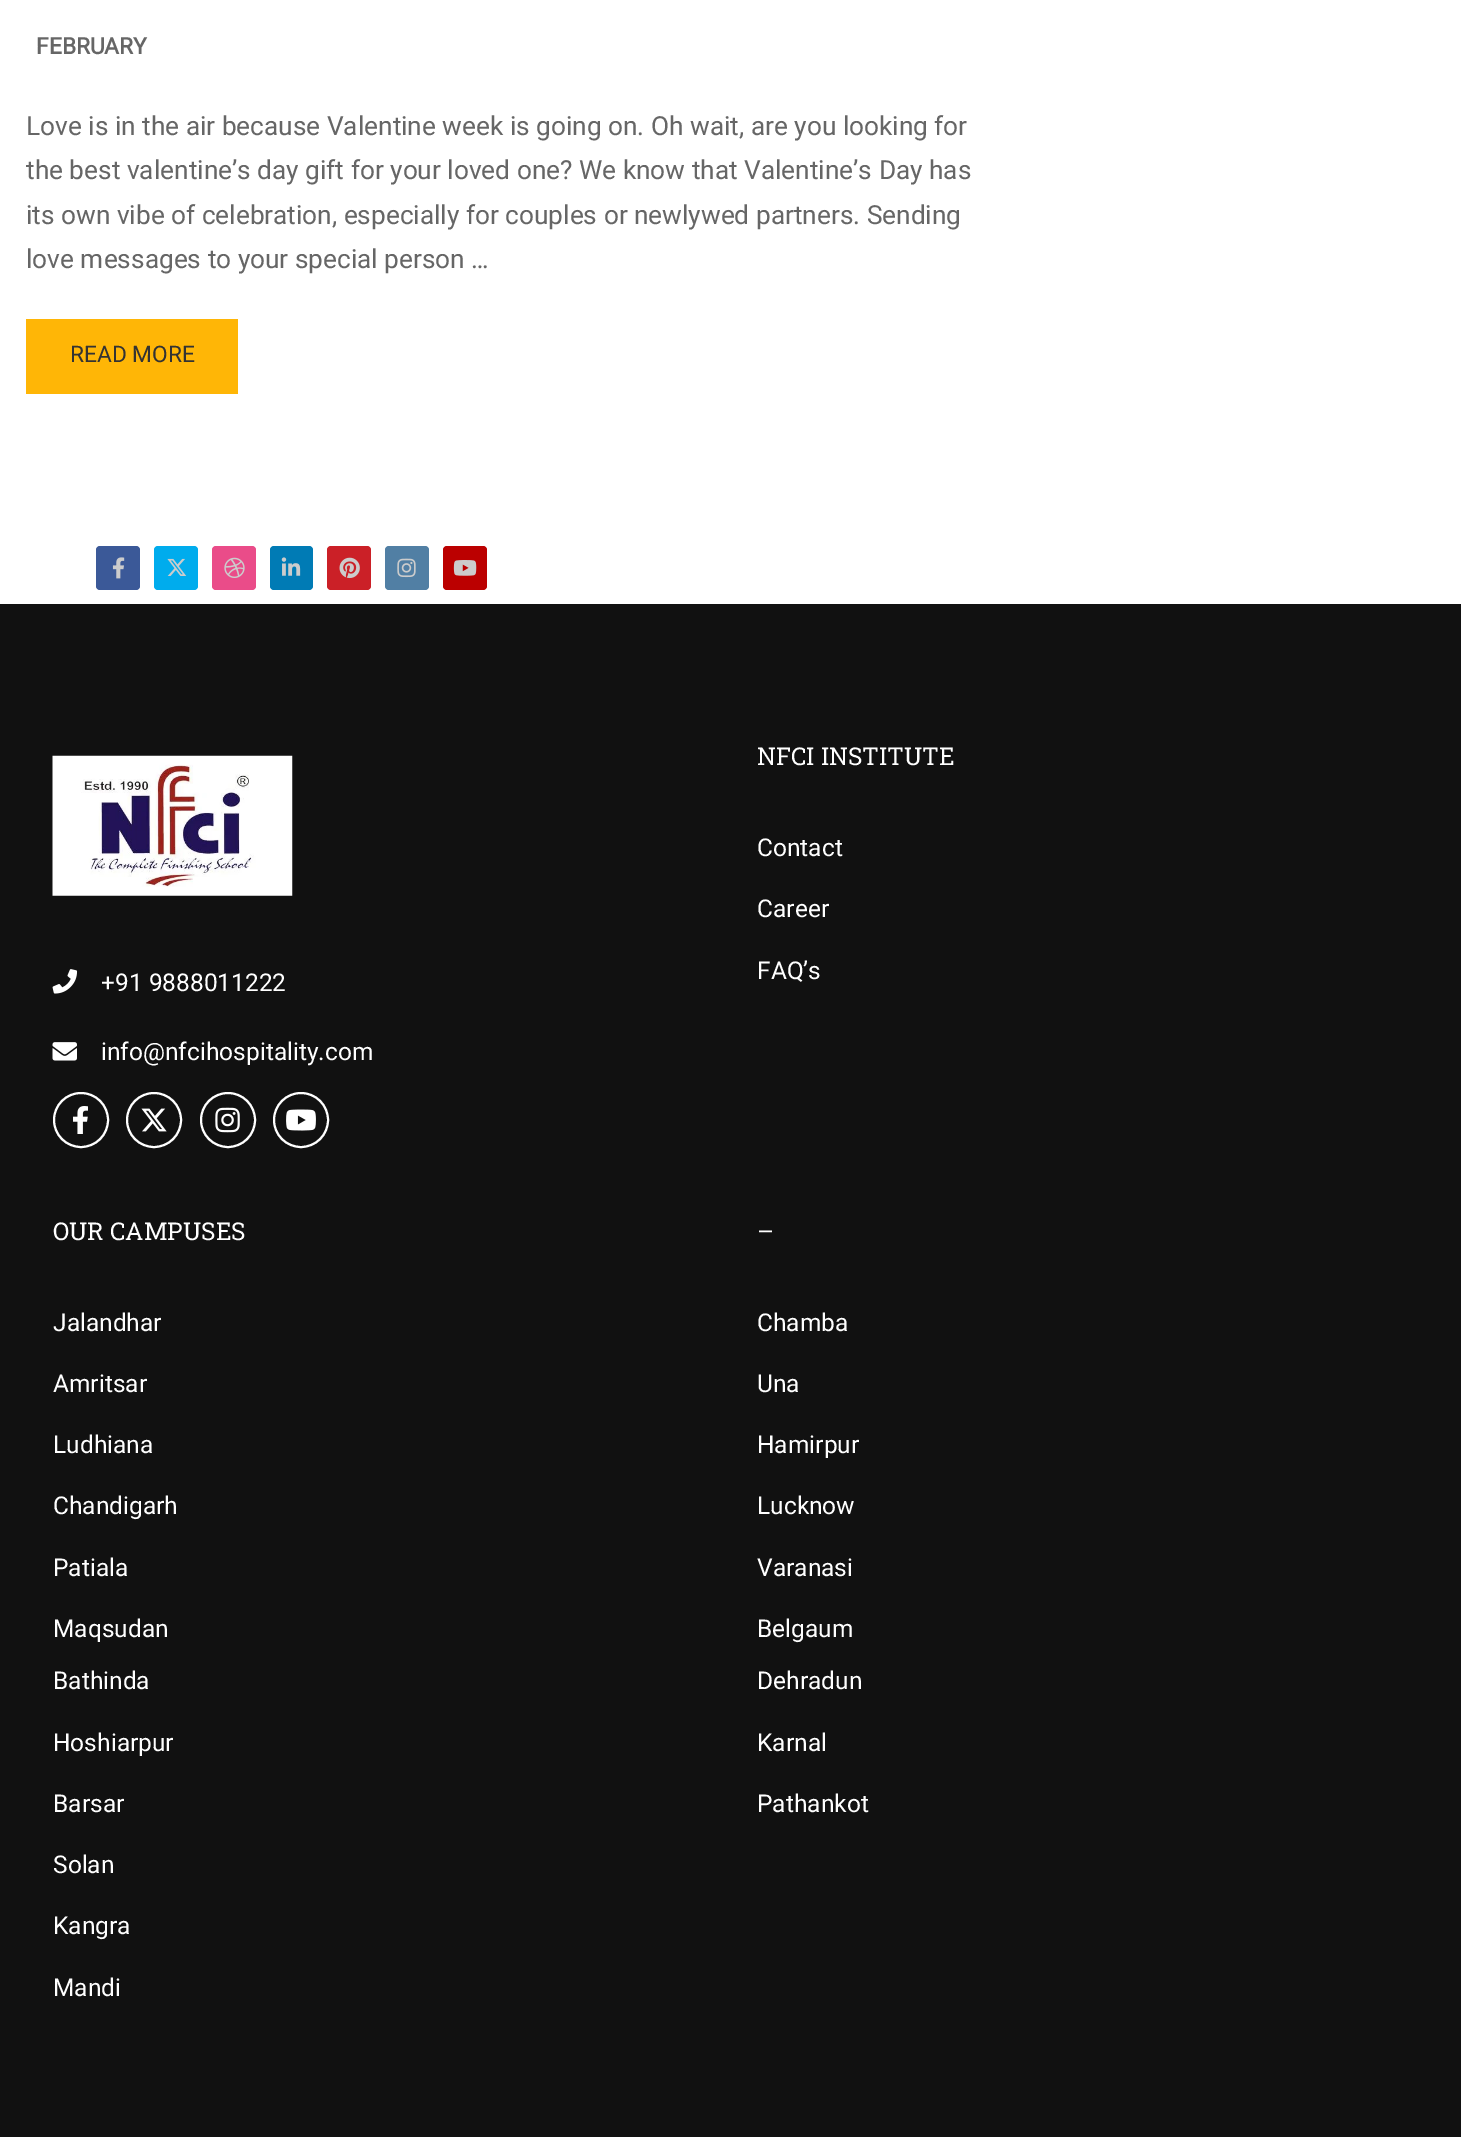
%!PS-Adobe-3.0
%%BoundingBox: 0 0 1461 2137
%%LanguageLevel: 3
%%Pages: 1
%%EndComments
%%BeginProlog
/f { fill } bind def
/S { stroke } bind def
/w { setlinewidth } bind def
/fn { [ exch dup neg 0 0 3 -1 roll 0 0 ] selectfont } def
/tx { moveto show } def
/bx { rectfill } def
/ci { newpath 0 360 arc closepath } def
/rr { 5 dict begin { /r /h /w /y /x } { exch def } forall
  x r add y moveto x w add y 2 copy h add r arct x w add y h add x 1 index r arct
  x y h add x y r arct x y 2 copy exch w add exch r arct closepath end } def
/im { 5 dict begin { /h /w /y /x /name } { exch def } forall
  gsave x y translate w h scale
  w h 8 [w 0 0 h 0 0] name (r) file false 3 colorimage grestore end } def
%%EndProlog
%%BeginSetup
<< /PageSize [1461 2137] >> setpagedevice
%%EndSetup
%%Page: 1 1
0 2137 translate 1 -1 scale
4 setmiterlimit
1 setgray
0 0 1461 2137 bx
/Roboto-Bold 22.75 fn
0.4 setgray
(FEBRUARY) 36 54 tx
/Roboto-Regular 26.25 fn
(Love is in the air because Valentine week is going on. Oh wait, are you looking for) 26 135 tx
(the best valentine’s day gift for your loved one? We know that Valentine’s Day has) 26 179 tx
(its own vibe of celebration, especially for couples or newlywed partners. Sending) 26 224 tx
(love messages to your special person …) 26 268 tx
1 0.714 0.024 setrgbcolor
26 319 212 75 bx
/Roboto-Regular 22.75 fn
0.2 setgray
(READ MORE) 70 362 tx
0.231 0.349 0.596 setrgbcolor
96 546 44 44 4 rr f
(image0.raw) 112 557 13 22 im
0 0.675 0.929 setrgbcolor
154 546 44 44 4 rr f
(image1.raw) 167 558 20 18 im
0.918 0.298 0.537 setrgbcolor
212 546 44 44 4 rr f
(image2.raw) 224 557 21 21 im
0 0.482 0.71 setrgbcolor
270 546 43 44 4 rr f
(image3.raw) 281 557 20 19 im
0.796 0.125 0.153 setrgbcolor
327 546 44 44 4 rr f
(image4.raw) 339 557 21 22 im
0.318 0.498 0.643 setrgbcolor
385 546 44 44 4 rr f
(image5.raw) 397 558 19 20 im
0.733 0 0 setrgbcolor
443 546 44 44 4 rr f
(image6.raw) 453 560 24 16 im
0.067 setgray
0 604 1461 1533 bx
/RobotoSlab-Regular 24.5 fn
1 setgray
(NFCI INSTITUTE) 757 765 tx
/Roboto-Regular 24.5 fn
(Contact) 757 856 tx
(Career) 757 917 tx
(FAQ’s) 757 979 tx
(image7.raw) 52 755 241 141 im
(image8.raw) 52 969 26 25 im
(+91 9888011222) 101 991 tx
(image9.raw) 52 1042 25 19 im
(info@nfcihospitality.com) 101 1060 tx
2 w
81 1120 27 ci S
(image10.raw) 73 1106 15 28 im
154 1120 27 ci S
(image11.raw) 141 1108 26 24 im
228 1120 27 ci S
(image12.raw) 215 1107 25 26 im
301 1120 27 ci S
(image13.raw) 286 1109 30 22 im
/RobotoSlab-Regular 24.5 fn
(OUR CAMPUSES) 53 1240 tx
/Roboto-Regular 24.5 fn
(Jalandhar) 53 1331 tx
(Amritsar) 53 1392 tx
(Ludhiana) 53 1453 tx
(Chandigarh) 53 1514 tx
(Patiala) 53 1576 tx
(Maqsudan) 53 1637 tx
(Bathinda) 53 1689 tx
(Hoshiarpur) 53 1751 tx
(Barsar) 53 1812 tx
(Solan) 53 1873 tx
(Kangra) 53 1934 tx
(Mandi) 53 1996 tx
/RobotoSlab-Regular 24.5 fn
(–) 757 1240 tx
/Roboto-Regular 24.5 fn
(Chamba) 757 1331 tx
(Una) 757 1392 tx
(Hamirpur) 757 1453 tx
(Lucknow) 757 1514 tx
(Varanasi) 757 1576 tx
(Belgaum) 757 1637 tx
(Dehradun) 757 1689 tx
(Karnal) 757 1751 tx
(Pathankot) 757 1812 tx
showpage
%%EOF
